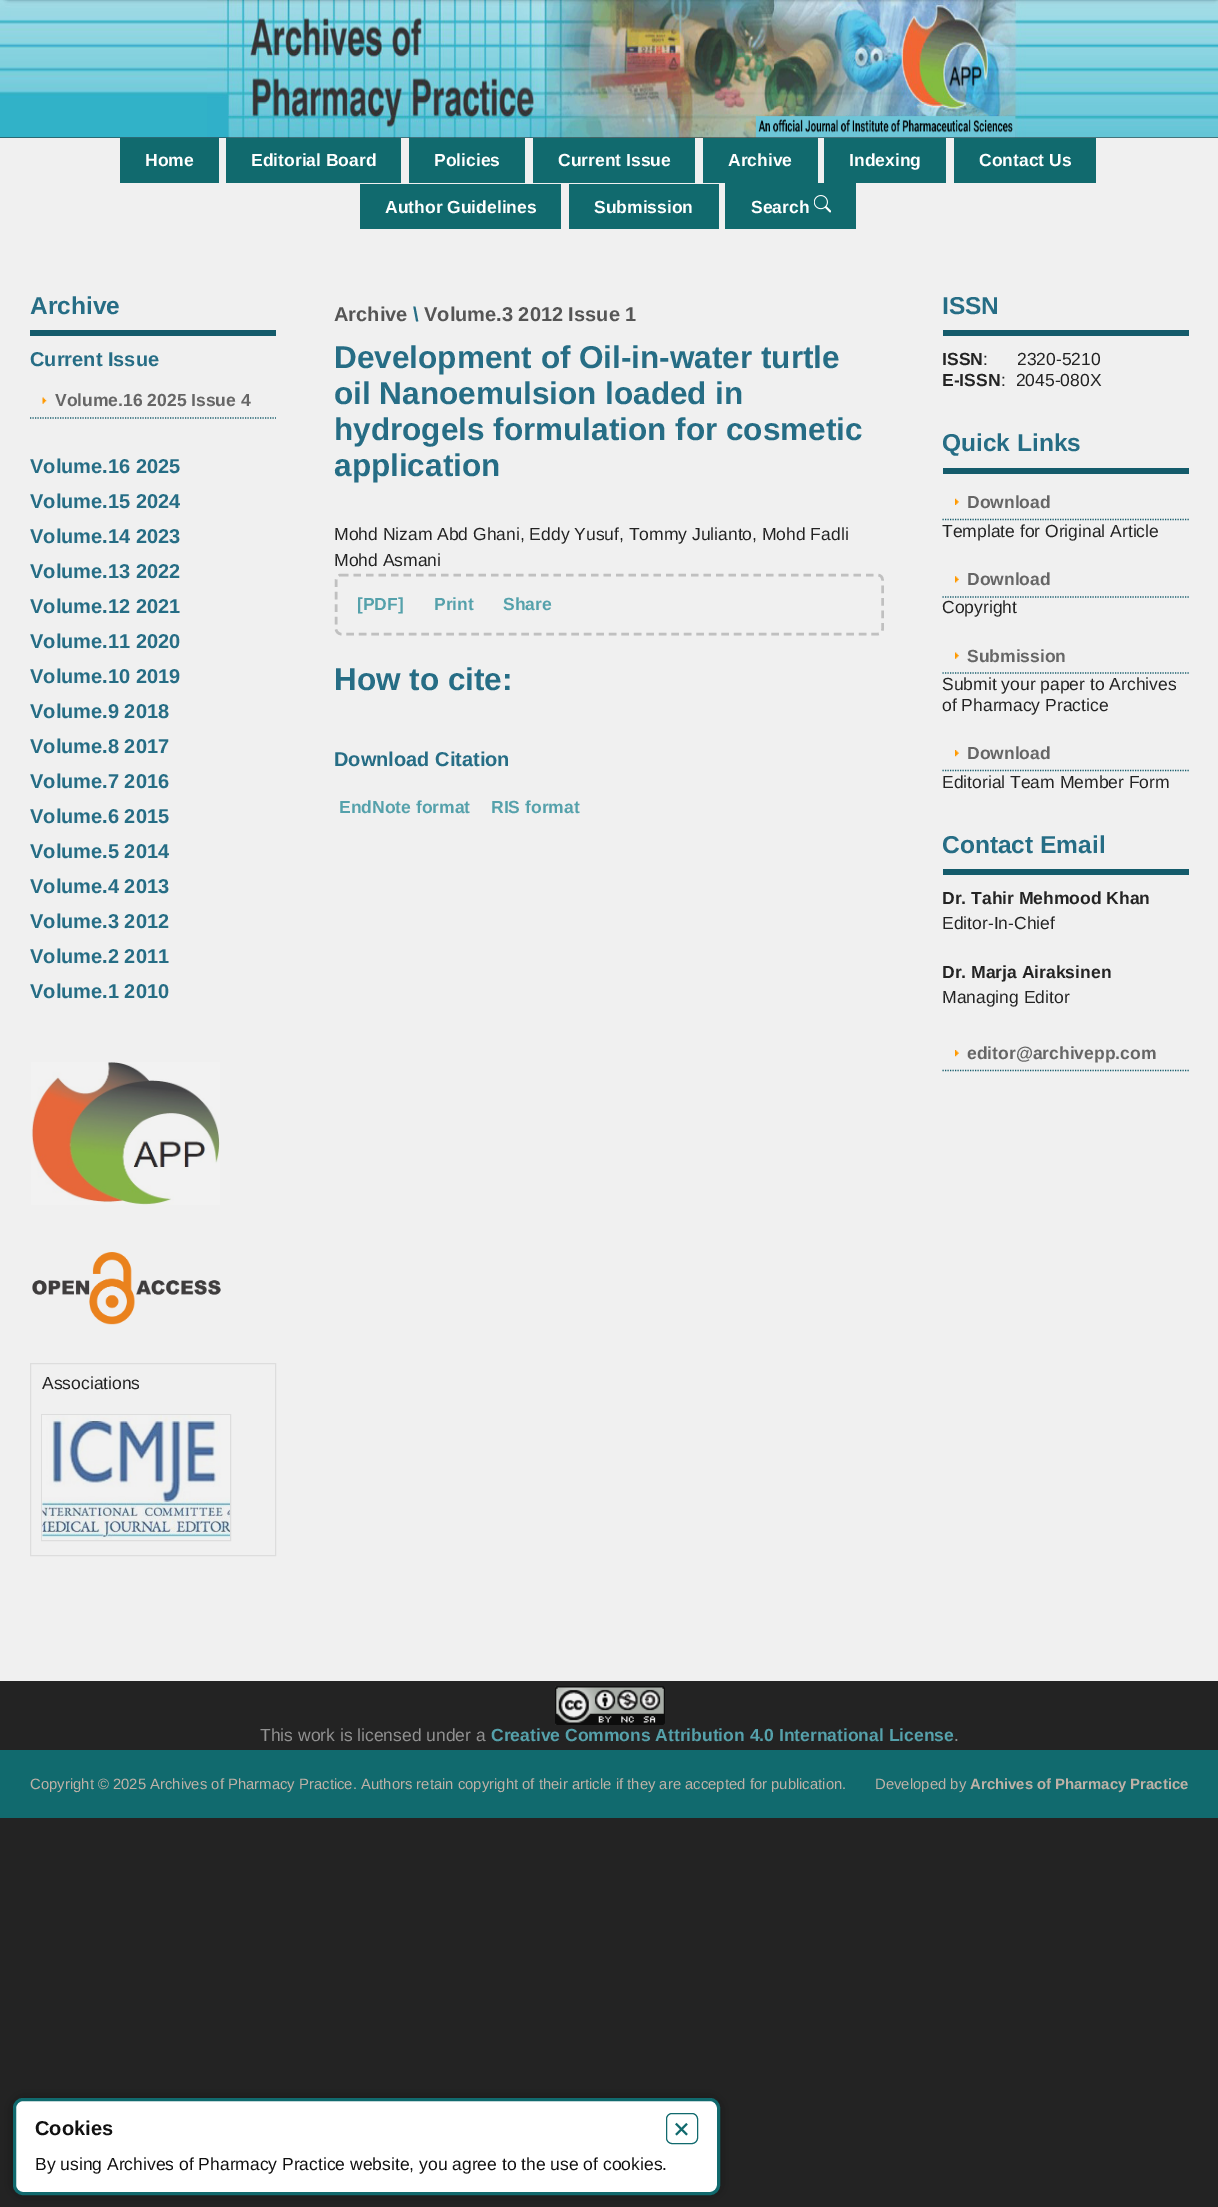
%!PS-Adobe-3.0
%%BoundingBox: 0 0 1218 2207
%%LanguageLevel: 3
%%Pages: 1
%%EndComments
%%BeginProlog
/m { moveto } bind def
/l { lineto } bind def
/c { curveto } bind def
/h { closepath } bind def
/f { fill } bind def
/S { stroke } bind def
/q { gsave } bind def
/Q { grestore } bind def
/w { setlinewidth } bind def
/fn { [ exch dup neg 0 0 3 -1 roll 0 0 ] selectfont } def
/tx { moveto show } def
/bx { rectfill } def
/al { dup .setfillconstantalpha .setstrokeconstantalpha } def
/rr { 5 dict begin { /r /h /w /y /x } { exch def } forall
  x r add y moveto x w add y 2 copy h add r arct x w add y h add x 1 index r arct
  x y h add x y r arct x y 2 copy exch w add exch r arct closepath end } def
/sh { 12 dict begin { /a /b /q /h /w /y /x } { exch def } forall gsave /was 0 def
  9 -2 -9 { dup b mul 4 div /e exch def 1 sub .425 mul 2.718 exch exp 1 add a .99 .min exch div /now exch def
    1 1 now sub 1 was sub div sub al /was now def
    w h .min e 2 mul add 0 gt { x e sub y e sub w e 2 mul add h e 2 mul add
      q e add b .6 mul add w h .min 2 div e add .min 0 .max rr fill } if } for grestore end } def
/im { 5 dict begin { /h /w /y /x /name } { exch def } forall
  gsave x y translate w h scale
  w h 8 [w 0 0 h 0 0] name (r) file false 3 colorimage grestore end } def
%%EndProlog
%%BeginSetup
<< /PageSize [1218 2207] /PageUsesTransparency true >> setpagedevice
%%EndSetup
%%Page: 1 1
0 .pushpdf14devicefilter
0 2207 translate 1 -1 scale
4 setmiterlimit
0.137 setgray
0 0 1218 2207 bx
(image0.raw) 0 0 1218 138 im
0.941 setgray
0 138 1218 1543 bx
0.067 0.416 0.431 setrgbcolor
120 138 99 45 bx
/LiberationSans-Bold 17.5 fn
1 setgray
(Home) 145 166 tx
0.067 0.416 0.431 setrgbcolor
226 138 175 45 bx
1 setgray
(Editorial Board) 251 166 tx
0.067 0.416 0.431 setrgbcolor
409 138 116 45 bx
1 setgray
(Policies) 434 166 tx
0.067 0.416 0.431 setrgbcolor
533 138 162 45 bx
1 setgray
(Current Issue) 558 166 tx
0.067 0.416 0.431 setrgbcolor
703 138 115 45 bx
1 setgray
(Archive) 728 166 tx
0.067 0.416 0.431 setrgbcolor
824 138 122 45 bx
1 setgray
(Indexing) 849 166 tx
0.067 0.416 0.431 setrgbcolor
954 138 142 45 bx
1 setgray
(Contact Us) 979 166 tx
0.067 0.416 0.431 setrgbcolor
360 184 201 45 bx
1 setgray
(Author Guidelines) 385 213 tx
0.067 0.416 0.431 setrgbcolor
569 184 150 45 bx
1 setgray
(Submission) 594 213 tx
0.067 0.416 0.431 setrgbcolor
725 183 131 46 bx
1 setgray
(Search) 751 213 tx
(image1.raw) 814 195 17 18 im
0.078 0.357 0.42 setrgbcolor
30 330 246 6 bx
/LiberationSans-Bold 24.5 fn
0.149 0.427 0.522 setrgbcolor
(Archive) 30 314 tx
/LiberationSans-Bold 20 fn
(Current Issue) 30 366 tx
(image2.raw) 42 397 5 7 im
0.078 0.357 0.42 setrgbcolor
1.2 w
[1.25 1.25] 0 setdash
30 418 m 276 418 l S
/LiberationSans-Bold 17.5 fn
0.4 setgray
(Volume.16 2025 Issue 4) 55 406 tx
/LiberationSans-Bold 20 fn
0.149 0.427 0.522 setrgbcolor
(Volume.16 2025) 30 473 tx
(Volume.15 2024) 30 508 tx
(Volume.14 2023) 30 543 tx
(Volume.13 2022) 30 578 tx
(Volume.12 2021) 30 613 tx
(Volume.11 2020) 30 648 tx
(Volume.10 2019) 30 683 tx
(Volume.9 2018) 30 718 tx
(Volume.8 2017) 30 753 tx
(Volume.7 2016) 30 788 tx
(Volume.6 2015) 30 823 tx
(Volume.5 2014) 30 858 tx
(Volume.4 2013) 30 893 tx
(Volume.3 2012) 30 928 tx
(Volume.2 2011) 30 963 tx
(Volume.1 2010) 30 998 tx
(image3.raw) 31 1062 189 143 im
(image4.raw) 32 1252 189 73 im
0.867 setgray
1 w
[] 0 setdash
30.5 1363.5 245 192 rectstroke
/LiberationSans-Regular 17.5 fn
0.137 setgray
(Associations) 42 1389 tx
0.867 setgray
41.5 1414.5 189 126 rectstroke
(image5.raw) 42 1415 188 125 im
/LiberationSans-Bold 20 fn
0.333 setgray
(Archive) 334 321 tx
0.149 0.427 0.522 setrgbcolor
(\\) 413 321 tx
0.333 setgray
(Volume.3 2012 Issue 1) 424 321 tx
/LiberationSans-Bold 31.5 fn
0.149 0.427 0.522 setrgbcolor
(Development of Oil-in-water turtle) 334 368 tx
(oil Nanoemulsion loaded in) 334 404 tx
(hydrogels formulation for cosmetic) 334 440 tx
(application) 334 476 tx
/LiberationSans-Regular 17.5 fn
0.137 setgray
(Mohd Nizam Abd Ghani, Eddy Yusuf, Tommy Julianto, Mohd Fadli) 334 540 tx
(Mohd Asmani) 334 566 tx
0.753 setgray
2.5 w
[7.5 5] 0 setdash
341 575 m 877.5 575 l 880.5 575 882.5 577 882.5 580 c 882.5 629 l 882.5 631.5 880.5 634 877.5 634 c 341 634 l 338.5 634 336 631.5 336 629 c 336 580 l 336 577 338.5 575 341 575 c h S
/LiberationSans-Bold 17.5 fn
0.333 0.631 0.671 setrgbcolor
([PDF]) 357 610 tx
(Print) 434 610 tx
(Share) 503 610 tx
/LiberationSans-Bold 31.5 fn
0.149 0.427 0.522 setrgbcolor
(How to cite:) 334 690 tx
/LiberationSans-Bold 20 fn
(Download Citation) 334 766 tx
/LiberationSans-Bold 17.5 fn
0.333 0.631 0.671 setrgbcolor
(EndNote format) 339 813 tx
(RIS format) 491 813 tx
0.078 0.357 0.42 setrgbcolor
943 330 246 6 bx
/LiberationSans-Bold 24.5 fn
0.149 0.427 0.522 setrgbcolor
(ISSN) 942 314 tx
/LiberationSans-Bold 17.5 fn
0.137 setgray
(ISSN) 942 365 tx
/LiberationSans-Regular 17.5 fn
(:      2320-5210) 983 365 tx
/LiberationSans-Bold 17.5 fn
(E-ISSN) 942 386 tx
/LiberationSans-Regular 17.5 fn
(:  2045-080X) 1001 386 tx
0.078 0.357 0.42 setrgbcolor
943 468 246 6 bx
/LiberationSans-Bold 24.5 fn
0.149 0.427 0.522 setrgbcolor
(Quick Links) 942 451 tx
(image6.raw) 955 498 4 7 im
0.078 0.357 0.42 setrgbcolor
1.2 w
[1.25 1.25] 0 setdash
942.5 519.5 m 1189 519.5 l S
/LiberationSans-Bold 17.5 fn
0.4 setgray
(Download) 967 508 tx
/LiberationSans-Regular 17.5 fn
0.137 setgray
(Template for Original Article) 942 537 tx
(image7.raw) 955 576 4 7 im
0.078 0.357 0.42 setrgbcolor
942.5 597 m 1189 597 l S
/LiberationSans-Bold 17.5 fn
0.4 setgray
(Download) 967 585 tx
/LiberationSans-Regular 17.5 fn
0.137 setgray
(Copyright) 942 613 tx
(image8.raw) 955 652 4 7 im
0.078 0.357 0.42 setrgbcolor
942.5 673 m 1189 673 l S
/LiberationSans-Bold 17.5 fn
0.4 setgray
(Submission) 967 662 tx
/LiberationSans-Regular 17.5 fn
0.137 setgray
(Submit your paper to Archives) 942 690 tx
(of Pharmacy Practice) 942 711 tx
(image9.raw) 955 750 4 7 im
0.078 0.357 0.42 setrgbcolor
942.5 770.5 m 1189 770.5 l S
/LiberationSans-Bold 17.5 fn
0.4 setgray
(Download) 967 759 tx
/LiberationSans-Regular 17.5 fn
0.137 setgray
(Editorial Team Member Form) 942 788 tx
0.078 0.357 0.42 setrgbcolor
943 869 246 6 bx
/LiberationSans-Bold 24.5 fn
0.149 0.427 0.522 setrgbcolor
(Contact Email) 942 853 tx
/LiberationSans-Bold 17.5 fn
0.137 setgray
(Dr. Tahir Mehmood Khan) 942 904 tx
/LiberationSans-Regular 17.5 fn
(Editor-In-Chief) 942 929 tx
/LiberationSans-Bold 17.5 fn
(Dr. Marja Airaksinen) 942 978 tx
/LiberationSans-Regular 17.5 fn
(Managing Editor) 942 1003 tx
(image9.raw) 955 1050 4 7 im
0.078 0.357 0.42 setrgbcolor
942.5 1070.5 m 1189 1070.5 l S
/LiberationSans-Bold 17.5 fn
0.4 setgray
(editor@archivepp.com) 967 1059 tx
(image10.raw) 555 1686 110 39 im
/LiberationSans-Regular 17.5 fn
0.569 setgray
(This work is licensed under a) 260 1741 tx
/LiberationSans-Bold 17.5 fn
0.333 0.631 0.671 setrgbcolor
(Creative Commons Attribution 4.0 International License) 491 1741 tx
/LiberationSans-Regular 17.5 fn
0.569 setgray
(.) 954 1741 tx
0.067 0.416 0.431 setrgbcolor
0 1750 1218 68 bx
/LiberationSans-Regular 14.88 fn
0.749 0.694 0.655 setrgbcolor
(Copyright © 2025 Archives of Pharmacy Practice. Authors retain copyright of their article if they are accepted for publication.) 30 1789 tx
(Developed by) 875 1789 tx
/LiberationSans-Bold 14.88 fn
(Archives of Pharmacy Practice) 970 1789 tx
0 setgray
13 2098 707 97 10 7.5 0.3 sh
1 setgray
14.5 2099.5 704 94 8.5 rr q f Q
0.067 0.416 0.431 setrgbcolor
3 w
[] 0 setdash
S
/LiberationSans-Bold 20 fn
0.067 setgray
(Cookies) 35 2135 tx
0.067 0.416 0.431 setrgbcolor
1 w
666.5 2113.5 31 30 5.5 rr S
/DejaVuSansMono-Regular 28 fn
(×) 673 2138 tx
/LiberationSans-Regular 17.5 fn
0.067 setgray
(By using Archives of Pharmacy Practice website, you agree to the use of cookies.) 35 2170 tx
.poppdf14devicefilter showpage
%%EOF
